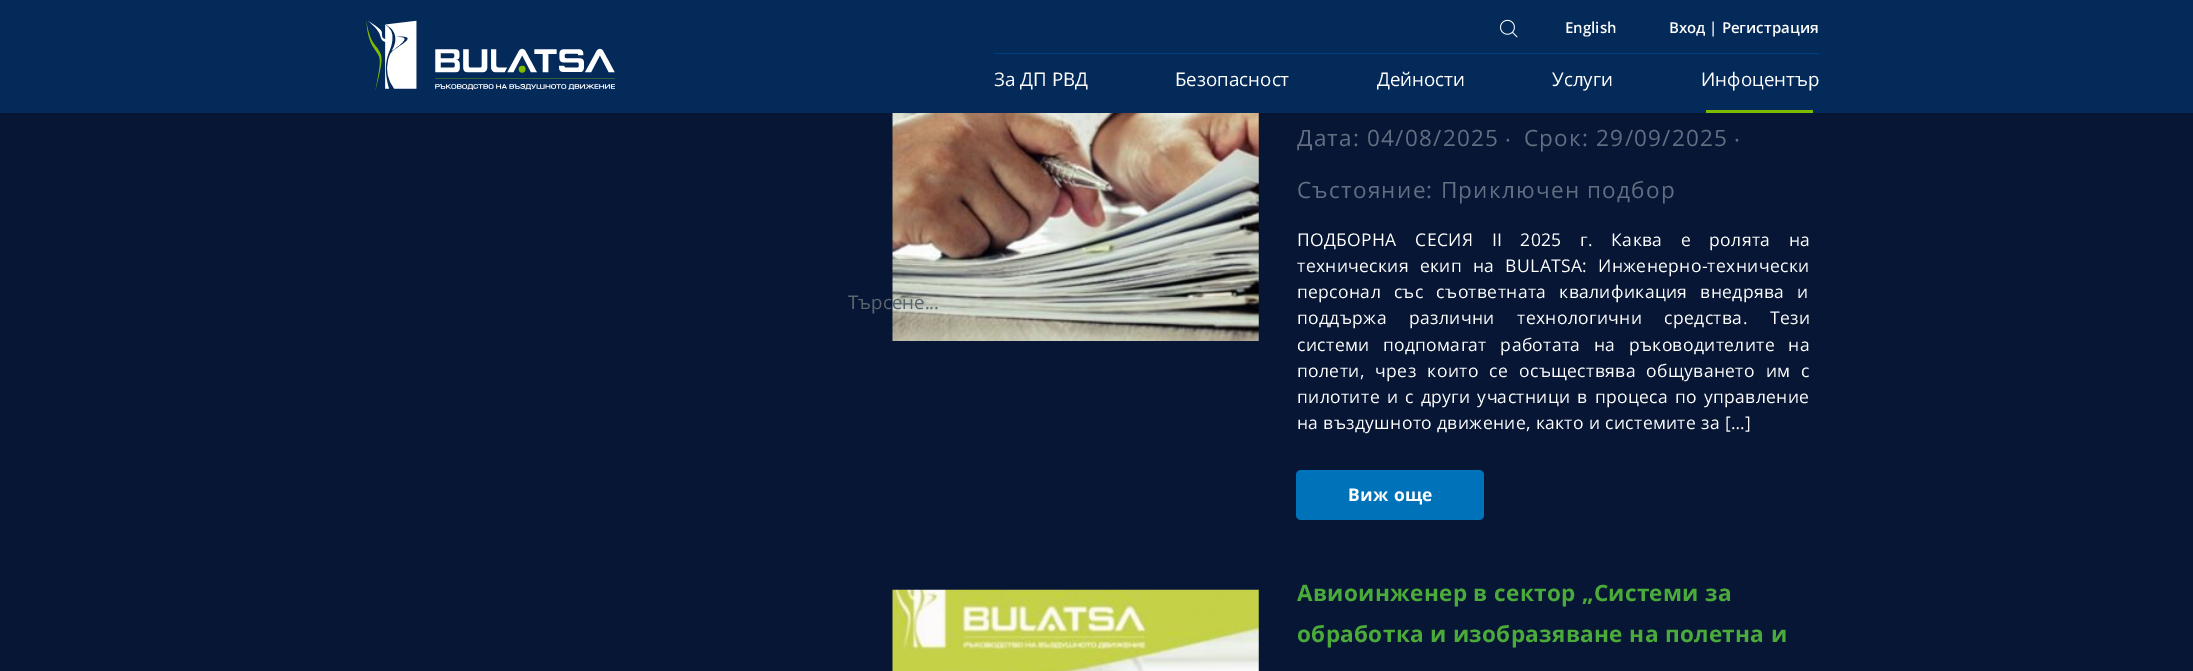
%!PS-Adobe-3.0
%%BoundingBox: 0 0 2193 671
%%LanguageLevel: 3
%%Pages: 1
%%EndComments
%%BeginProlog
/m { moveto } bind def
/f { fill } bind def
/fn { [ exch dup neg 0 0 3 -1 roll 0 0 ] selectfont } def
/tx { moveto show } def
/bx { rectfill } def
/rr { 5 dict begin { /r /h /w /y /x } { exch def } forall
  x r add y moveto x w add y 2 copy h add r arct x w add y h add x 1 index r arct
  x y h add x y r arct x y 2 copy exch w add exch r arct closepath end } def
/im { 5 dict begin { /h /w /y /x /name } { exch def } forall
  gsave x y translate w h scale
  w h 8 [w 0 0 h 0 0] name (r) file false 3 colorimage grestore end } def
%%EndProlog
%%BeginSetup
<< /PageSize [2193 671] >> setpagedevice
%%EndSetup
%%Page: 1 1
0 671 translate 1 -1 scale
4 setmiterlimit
0.024 0.086 0.204 setrgbcolor
0 0 2193 671 bx
(image2.raw) 892 113 367 228 im
/OpenSans-Regular 18.75 fn
0.353 0.396 0.439 setrgbcolor
(Търсене...) 848 309 tx
0.012 0.165 0.349 setrgbcolor
0 0 2193 113 bx
(image0.raw) 366 20 249 71 im
(image1.raw) 1500 19 18 19 im
/OpenSans-SemiBold 15 fn
1 setgray
(English) 1565 33 tx
(Вход | Регистрация) 1669 33 tx
0 0.243 0.494 setrgbcolor
994 53 825 1 bx
/OpenSans-Regular 18.75 fn
1 setgray
(Зa ДП РВД) 994 86 tx
(Безопасност) 1175 86 tx
(Дейности) 1377 86 tx
(Услуги) 1552 86 tx
(Инфоцентър) 1701 86 tx
0.49 0.729 0 setrgbcolor
1706 110 107 3 bx
/OpenSans-Regular 22.5 fn
0.384 0.431 0.506 setrgbcolor
1297 146 m 1.25 0 (Дата: 04/08/2025) ashow
1505 148 m 1.25 0 (·) ashow
1524 146 m 1.25 0 (Срок: 29/09/2025) ashow
1734 148 m 1.25 0 (·) ashow
1297 198 m 1.25 0 (Състояние: Приключен подбор) ashow
/OpenSans-Regular 17.5 fn
1 setgray
1297 246 m 13.5 0 32 0.35 0 (ПОДБОРНА СЕСИЯ II 2025 г. Каква е ролята на) awidthshow
1297 272 m 6 0 32 0.35 0 (техническия екип на BULATSA: Инженерно-технически) awidthshow
1297 298 m 8 0 32 0.35 0 (персонал със съответната квалификация внедрява и) awidthshow
1297 324 m 17.5 0 32 0.35 0 (поддържа различни технологични средства. Тези) awidthshow
1297 351 m 8.5 0 32 0.35 0 (системи подпомагат работата на ръководителите на) awidthshow
1297 377 m 6 0 32 0.35 0 (полети, чрез които се осъществява общуването им с) awidthshow
1297 403 m 2 0 32 0.35 0 (пилотите и с други участници в процеса по управление) awidthshow
1297 429 m 0.35 0 (на въздушното движение, както и системите за […]) ashow
0 0.447 0.725 setrgbcolor
1296 470 188 50 5 rr f
/OpenSans-Bold 17.5 fn
1 setgray
1348 501 m 0.35 0 (Виж още) ashow
(image3.raw) 892 589 367 82 im
/OpenSans-Bold 22.5 fn
0.29 0.667 0.227 setrgbcolor
1297 601 m 0.35 0 (Авиоинженер в сектор „Системи за) ashow
1297 642 m 0.35 0 (обработка и изобразяване на полетна и) ashow
showpage
%%EOF
